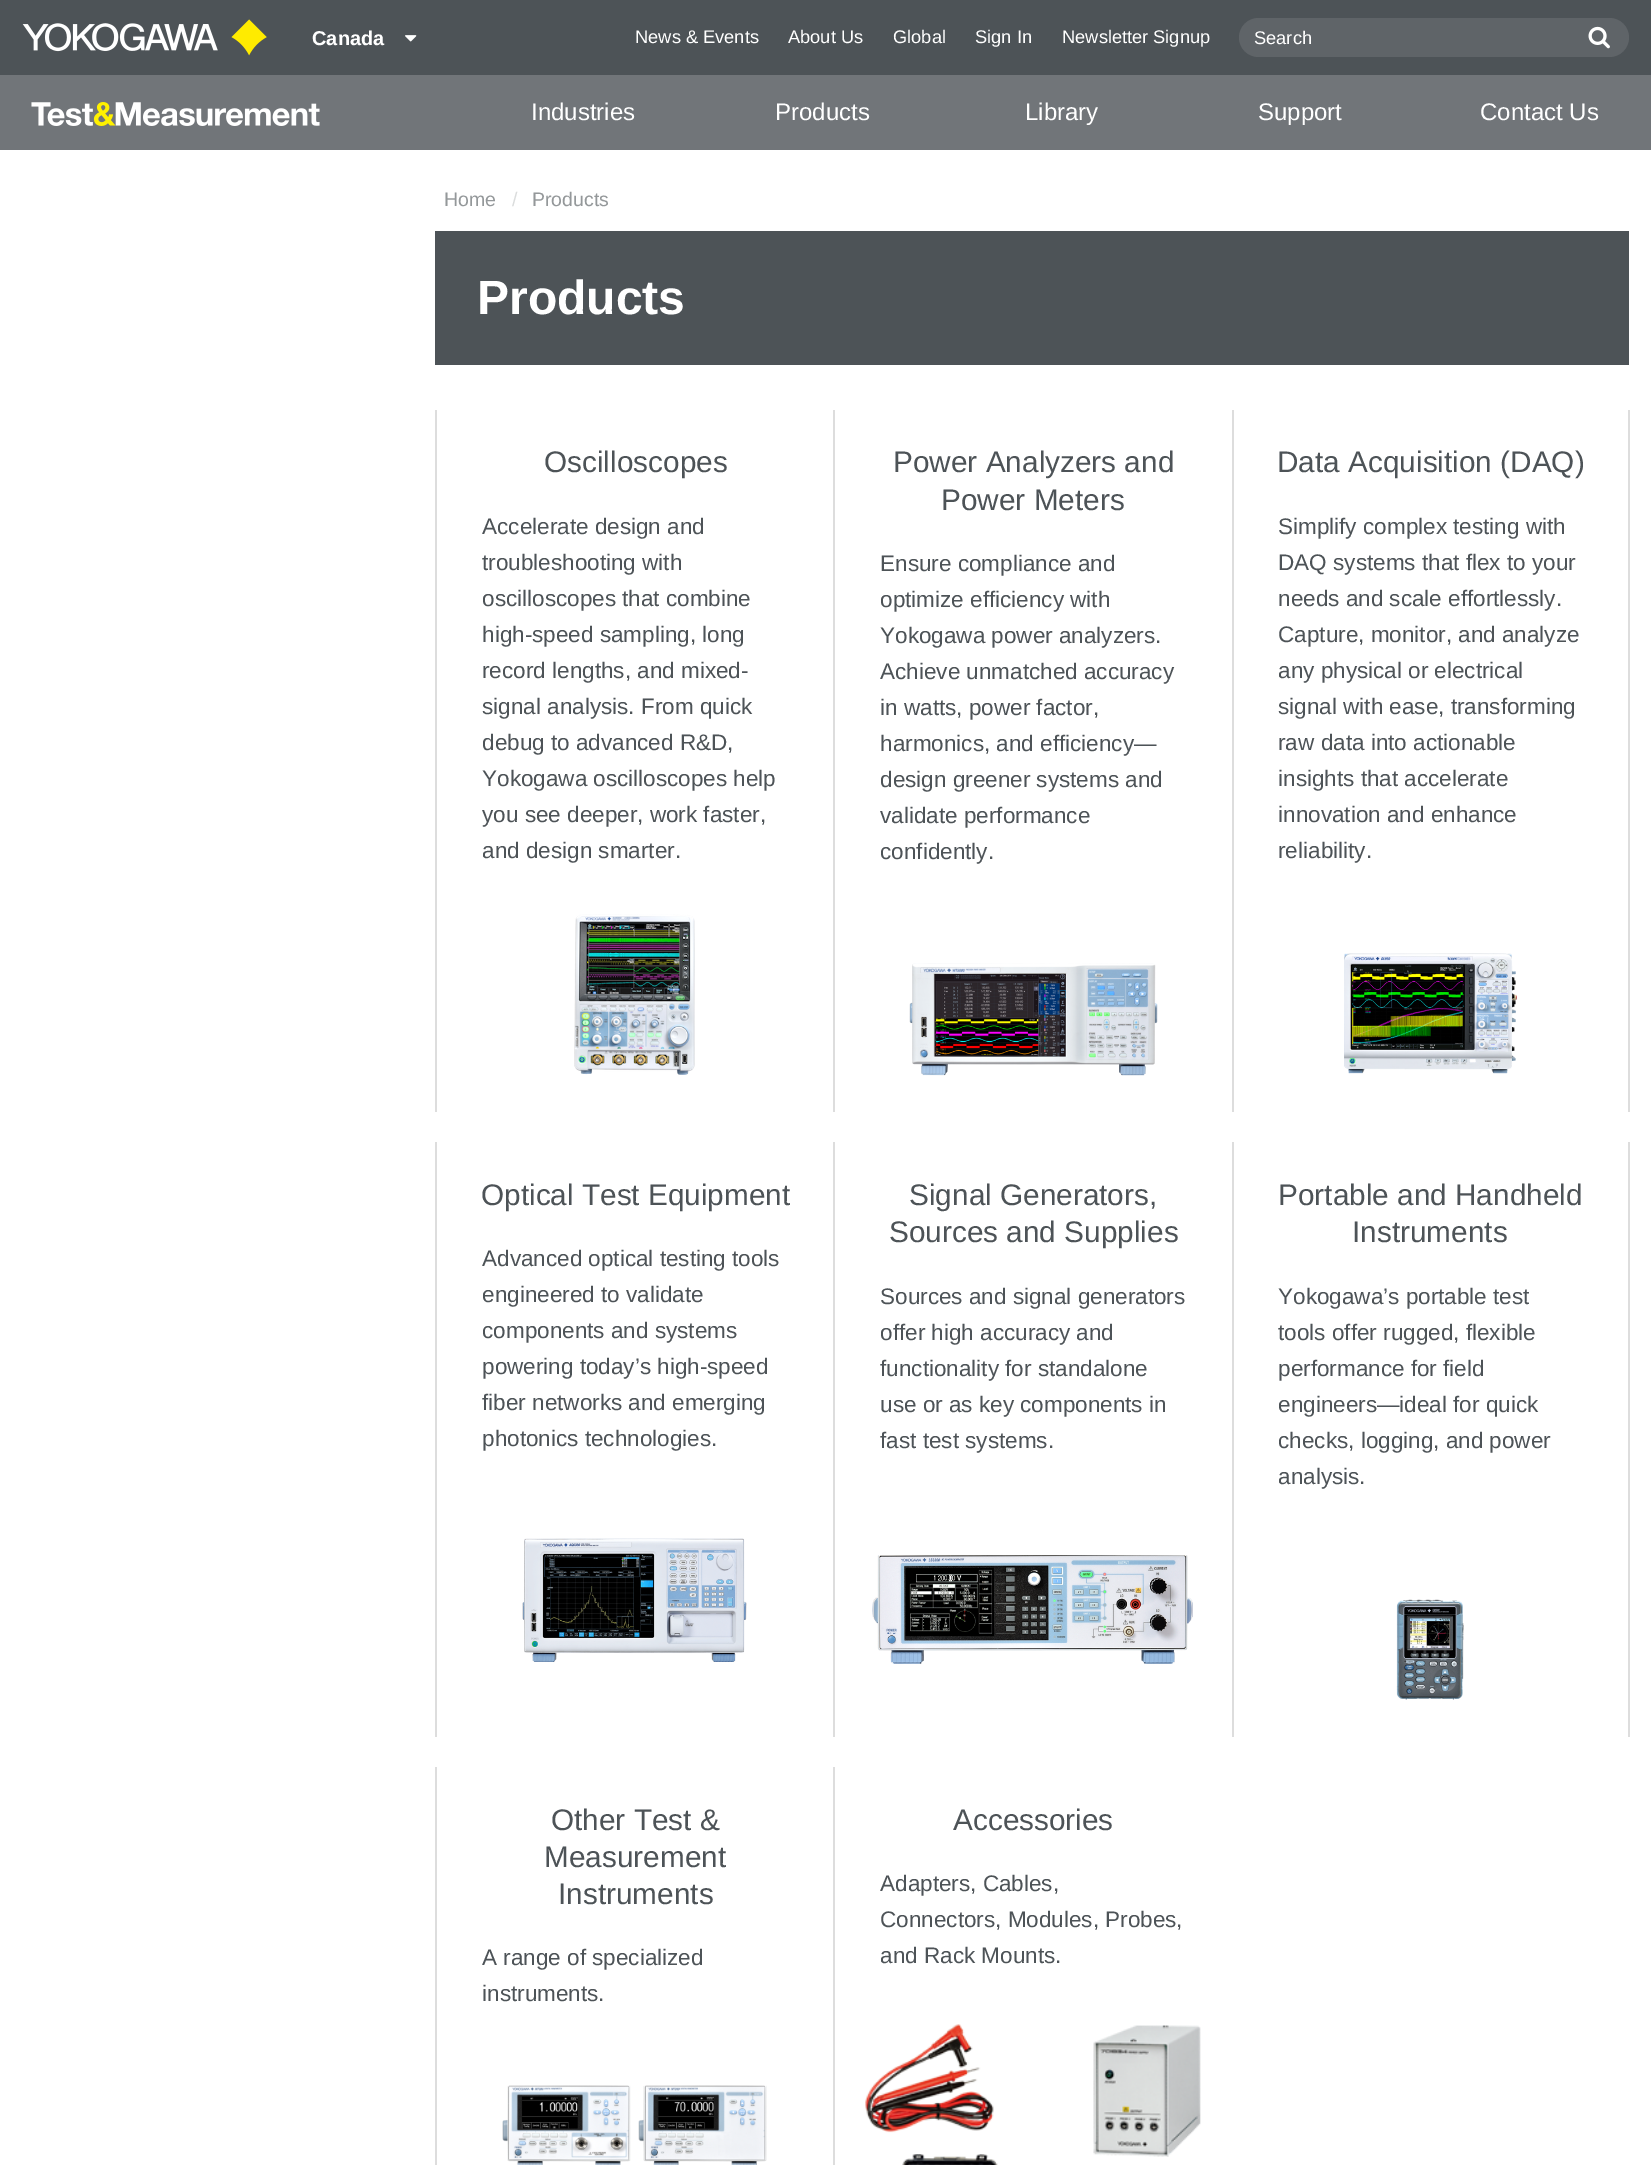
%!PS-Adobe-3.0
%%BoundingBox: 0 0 1651 2165
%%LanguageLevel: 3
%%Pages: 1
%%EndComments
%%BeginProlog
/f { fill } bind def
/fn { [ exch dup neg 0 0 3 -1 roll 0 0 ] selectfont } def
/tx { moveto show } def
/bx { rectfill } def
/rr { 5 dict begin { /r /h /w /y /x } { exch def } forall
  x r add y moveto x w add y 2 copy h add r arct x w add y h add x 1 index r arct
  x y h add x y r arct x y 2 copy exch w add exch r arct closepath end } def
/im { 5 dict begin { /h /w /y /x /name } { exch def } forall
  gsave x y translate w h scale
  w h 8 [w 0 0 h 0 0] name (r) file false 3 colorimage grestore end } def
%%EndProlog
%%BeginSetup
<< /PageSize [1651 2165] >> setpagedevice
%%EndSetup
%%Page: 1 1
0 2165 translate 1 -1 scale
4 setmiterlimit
1 setgray
0 0 1651 2165 bx
0.302 0.325 0.341 setrgbcolor
0 0 1651 75 bx
(image0.raw) 22 19 245 37 im
/LiberationSans-Bold 20 fn
1 setgray
(Canada) 312 45 tx
(image1.raw) 405 35 12 7 im
/LiberationSans-Regular 18.25 fn
(News & Events) 635 43 tx
(About Us) 788 43 tx
(Global) 893 43 tx
(Sign In) 975 43 tx
(Newsletter Signup) 1062 43 tx
0.373 0.392 0.408 setrgbcolor
1239 18 390 39 19.5 rr f
1 setgray
(Search) 1254 44 tx
(image2.raw) 1588 26 22 23 im
0.443 0.459 0.475 setrgbcolor
0 75 1651 75 bx
(image3.raw) 31 102 289 24 im
/LiberationSans-Regular 24 fn
1 setgray
(Industries) 531 120 tx
(Products) 775 120 tx
(Library) 1025 120 tx
(Support) 1258 120 tx
(Contact Us) 1480 120 tx
/LiberationSans-Regular 19.5 fn
0.58 0.596 0.604 setrgbcolor
(Home) 444 206 tx
0.859 0.867 0.867 setrgbcolor
(/) 512 206 tx
0.58 0.596 0.604 setrgbcolor
(Products) 532 206 tx
0.302 0.325 0.341 setrgbcolor
435 231 1194 134 bx
/LiberationSans-Bold 48 fn
1 setgray
(Products) 477 314 tx
0.867 setgray
435 410 2 702 bx
/LiberationSans-Regular 29.75 fn
0.302 0.325 0.341 setrgbcolor
(Oscilloscopes) 544 472 tx
/LiberationSans-Regular 22.5 fn
(Accelerate design and) 482 534 tx
(troubleshooting with) 482 570 tx
(oscilloscopes that combine) 482 606 tx
(high-speed sampling, long) 482 642 tx
(record lengths, and mixed-) 482 678 tx
(signal analysis. From quick) 482 714 tx
(debug to advanced R&D,) 482 750 tx
(Yokogawa oscilloscopes help) 482 786 tx
(you see deeper, work faster,) 482 822 tx
(and design smarter.) 482 858 tx
(image4.raw) 574 914 121 161 im
0.867 setgray
833 410 2 702 bx
/LiberationSans-Regular 29.75 fn
0.302 0.325 0.341 setrgbcolor
(Power Analyzers and) 893 472 tx
(Power Meters) 941 510 tx
/LiberationSans-Regular 22.5 fn
(Ensure compliance and) 880 571 tx
(optimize efficiency with) 880 607 tx
(Yokogawa power analyzers.) 880 643 tx
(Achieve unmatched accuracy) 880 679 tx
(in watts, power factor,) 880 715 tx
(harmonics, and efficiency—) 880 751 tx
(design greener systems and) 880 787 tx
(validate performance) 880 823 tx
(confidently.) 880 859 tx
(image5.raw) 909 963 249 113 im
0.867 setgray
1628 410 2 702 bx
1232 410 2 702 bx
/LiberationSans-Regular 29.75 fn
0.302 0.325 0.341 setrgbcolor
(Data Acquisition \(DAQ\)) 1277 472 tx
/LiberationSans-Regular 22.5 fn
(Simplify complex testing with) 1278 534 tx
(DAQ systems that flex to your) 1278 570 tx
(needs and scale effortlessly.) 1278 606 tx
(Capture, monitor, and analyze) 1278 642 tx
(any physical or electrical) 1278 678 tx
(signal with ease, transforming) 1278 714 tx
(raw data into actionable) 1278 750 tx
(insights that accelerate) 1278 786 tx
(innovation and enhance) 1278 822 tx
(reliability.) 1278 858 tx
(image6.raw) 1344 953 173 121 im
0.867 setgray
435 1142 2 595 bx
/LiberationSans-Regular 29.75 fn
0.302 0.325 0.341 setrgbcolor
(Optical Test Equipment) 481 1205 tx
/LiberationSans-Regular 22.5 fn
(Advanced optical testing tools) 482 1266 tx
(engineered to validate) 482 1302 tx
(components and systems) 482 1338 tx
(powering today’s high-speed) 482 1374 tx
(fiber networks and emerging) 482 1410 tx
(photonics technologies.) 482 1446 tx
(image7.raw) 522 1538 225 124 im
0.867 setgray
833 1142 2 595 bx
/LiberationSans-Regular 29.75 fn
0.302 0.325 0.341 setrgbcolor
(Signal Generators,) 909 1205 tx
(Sources and Supplies) 889 1242 tx
/LiberationSans-Regular 22.5 fn
(Sources and signal generators) 880 1304 tx
(offer high accuracy and) 880 1340 tx
(functionality for standalone) 880 1376 tx
(use or as key components in) 880 1412 tx
(fast test systems.) 880 1448 tx
(image8.raw) 872 1555 321 109 im
0.867 setgray
1628 1142 2 595 bx
1232 1142 2 595 bx
/LiberationSans-Regular 29.75 fn
0.302 0.325 0.341 setrgbcolor
(Portable and Handheld) 1278 1205 tx
(Instruments) 1352 1242 tx
/LiberationSans-Regular 22.5 fn
(Yokogawa’s portable test) 1278 1304 tx
(tools offer rugged, flexible) 1278 1340 tx
(performance for field) 1278 1376 tx
(engineers—ideal for quick) 1278 1412 tx
(checks, logging, and power) 1278 1448 tx
(analysis.) 1278 1484 tx
(image9.raw) 1396 1599 68 101 im
0.867 setgray
435 1767 2 398 bx
/LiberationSans-Regular 29.75 fn
0.302 0.325 0.341 setrgbcolor
(Other Test &) 551 1830 tx
(Measurement) 544 1867 tx
(Instruments) 558 1904 tx
/LiberationSans-Regular 22.5 fn
(A range of specialized) 482 1965 tx
(instruments.) 482 2001 tx
(image10.raw) 502 2085 265 80 im
0.867 setgray
833 1767 2 398 bx
/LiberationSans-Regular 29.75 fn
0.302 0.325 0.341 setrgbcolor
(Accessories) 953 1830 tx
/LiberationSans-Regular 22.5 fn
(Adapters, Cables,) 880 1891 tx
(Connectors, Modules, Probes,) 880 1927 tx
(and Rack Mounts.) 880 1963 tx
(image11.raw) 865 2024 336 141 im
showpage
%%EOF
